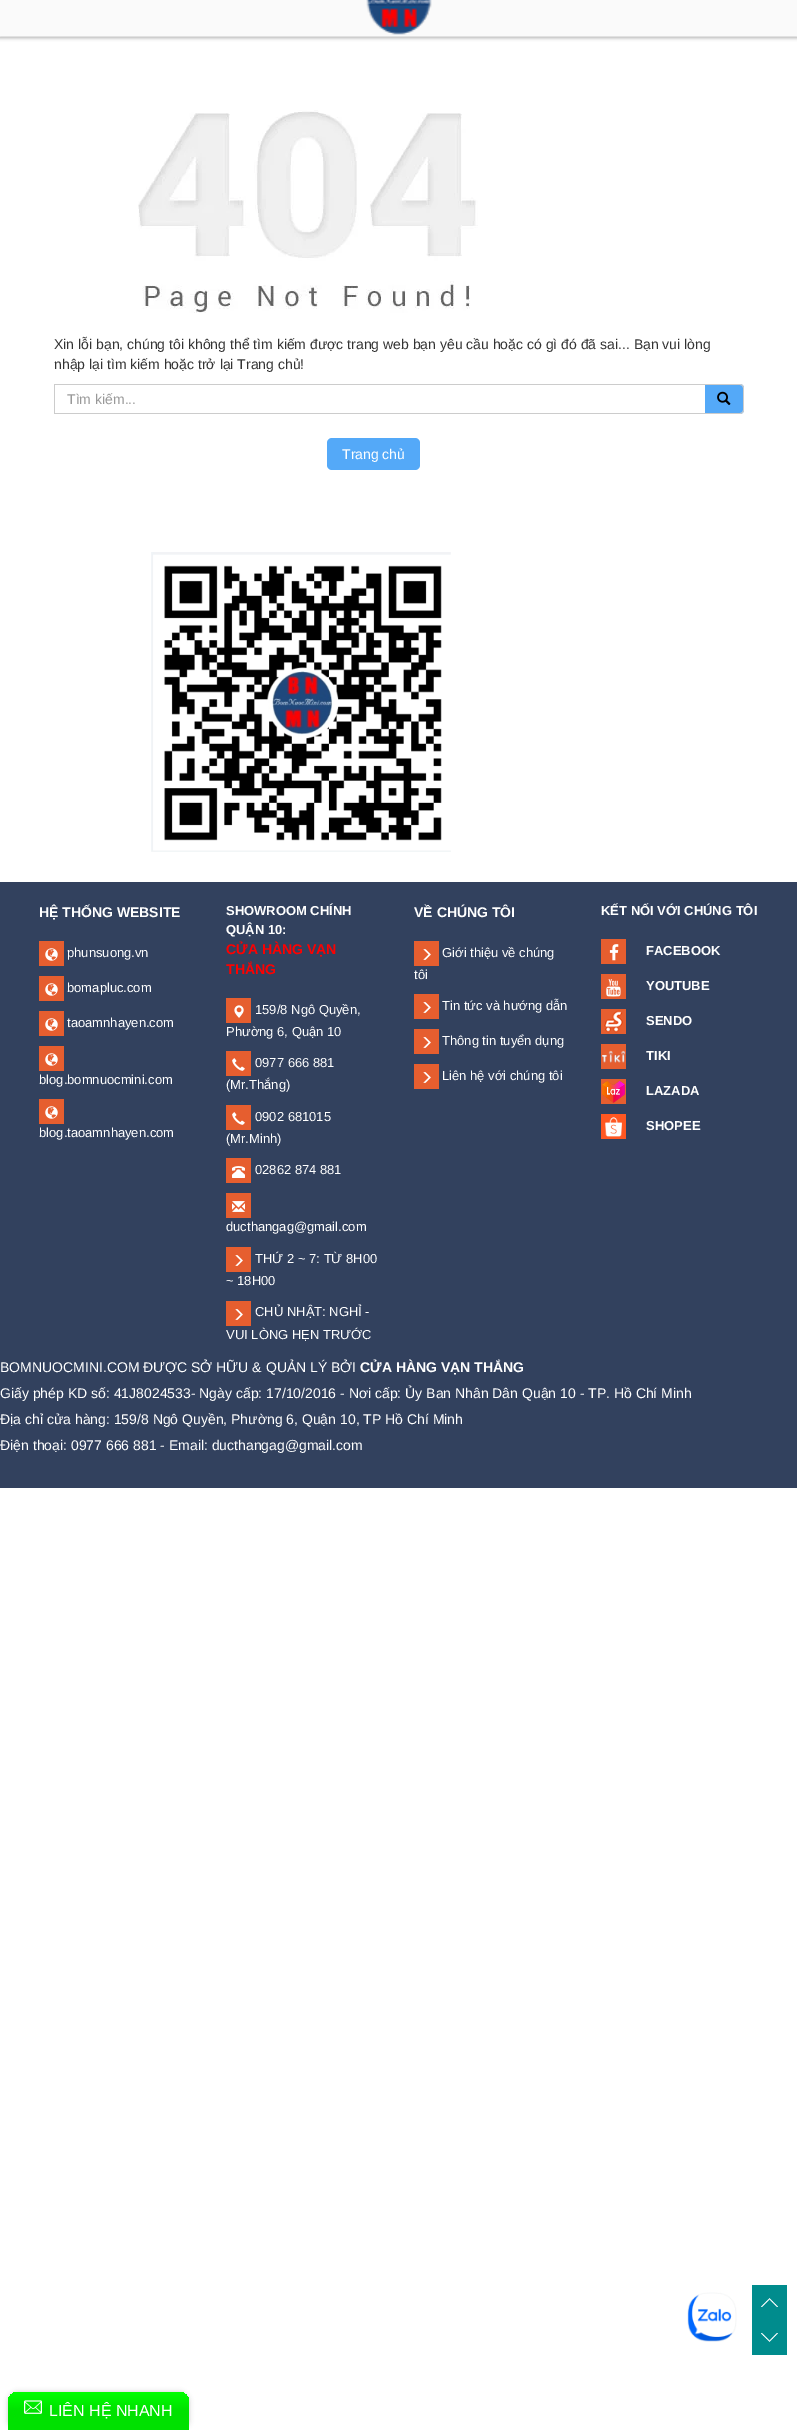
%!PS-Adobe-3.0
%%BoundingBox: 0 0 797 2430
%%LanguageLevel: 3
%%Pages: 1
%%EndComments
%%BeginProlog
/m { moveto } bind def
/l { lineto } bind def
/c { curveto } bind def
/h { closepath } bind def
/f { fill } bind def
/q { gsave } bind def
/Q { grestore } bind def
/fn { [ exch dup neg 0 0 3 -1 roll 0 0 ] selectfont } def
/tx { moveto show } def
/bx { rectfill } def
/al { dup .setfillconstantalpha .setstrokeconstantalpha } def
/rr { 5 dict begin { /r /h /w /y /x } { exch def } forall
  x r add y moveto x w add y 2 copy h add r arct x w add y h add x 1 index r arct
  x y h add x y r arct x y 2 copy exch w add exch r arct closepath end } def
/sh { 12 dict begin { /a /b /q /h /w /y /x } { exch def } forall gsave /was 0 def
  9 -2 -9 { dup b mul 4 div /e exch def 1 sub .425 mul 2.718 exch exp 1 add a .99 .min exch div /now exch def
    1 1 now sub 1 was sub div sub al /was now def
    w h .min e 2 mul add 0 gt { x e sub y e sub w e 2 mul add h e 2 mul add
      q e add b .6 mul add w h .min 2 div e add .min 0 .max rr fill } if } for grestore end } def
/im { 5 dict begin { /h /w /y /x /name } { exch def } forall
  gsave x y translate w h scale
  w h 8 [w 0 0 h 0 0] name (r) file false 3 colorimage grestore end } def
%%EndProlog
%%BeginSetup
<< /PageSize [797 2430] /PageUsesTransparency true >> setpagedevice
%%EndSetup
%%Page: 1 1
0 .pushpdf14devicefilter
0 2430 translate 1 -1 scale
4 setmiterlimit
1 setgray
0 0 797 2430 bx
0.988 setgray
0 41 797 1 bx
0.973 setgray
0 40 797 1 bx
0.933 setgray
0 39 797 1 bx
0.875 setgray
0 38 797 1 bx
0.808 setgray
0 37 797 1 bx
0.98 setgray
0 0 797 36 bx
0.882 setgray
0 36 797 1 bx
0.1 al
1 setgray
796 36 1 1 bx
0 36 1 1 bx
1 al
(image0.raw) 366 0 66 35 im
(image1.raw) 138 110 340 203 im
/LiberationSans-Regular 14 fn
0.2 setgray
(Xin lỗi bạn, chúng tôi không thể tìm kiếm được trang web bạn yêu cầu hoặc có gì đó đã sai... Bạn vui lòng) 54 349 tx
(nhập lại tìm kiếm hoặc trở lại Trang chủ!) 54 369 tx
0.8 setgray
54 384 651 1 bx
54 413 651 1 bx
54 384 1 30 bx
0.6 setgray
(Tìm kiếm...) 67 404 tx
0.329 0.663 0.973 setrgbcolor
705 384 m 740 384 l 742 384 744 386 744 388 c 744 410 l 744 412 742 414 740 414 c 705 414 l h f
0.8 setgray
705 384 m 740 384 l 742 384 744 386 744 388 c 744 410 l 744 412 742 414 740 414 c 705 414 l h 705 385 m 740 385 l 741.5 385 743 386.5 743 388 c 743 410 l 743 411.5 741.5 413 740 413 c 705 413 l h eofill
(image2.raw) 717 391 14 14 im
0.329 0.663 0.973 setrgbcolor
327 438 93 32 5 rr f
1 setgray
(Trang chủ) 342 459 tx
(image3.raw) 151 552 300 300 im
0.196 0.255 0.369 setrgbcolor
0 882 797 606 bx
/LiberationSans-Bold 14 fn
1 setgray
(HỆ THỐNG WEBSITE) 39 917 tx
0.902 0.369 0.184 setrgbcolor
39 941 25 25 bx
(image4.raw) 45 948 13 13 im
/LiberationSans-Regular 13 fn
1 setgray
(phunsuong.vn) 67 957 tx
0.902 0.369 0.184 setrgbcolor
39 976 25 25 bx
(image4.raw) 45 983 13 13 im
1 setgray
(bomapluc.com) 67 992 tx
0.902 0.369 0.184 setrgbcolor
39 1011 25 25 bx
(image4.raw) 45 1018 13 13 im
1 setgray
(taoamnhayen.com) 67 1027 tx
0.902 0.369 0.184 setrgbcolor
39 1046 25 25 bx
(image4.raw) 45 1053 13 13 im
1 setgray
(blog.bomnuocmini.com) 39 1084 tx
0.902 0.369 0.184 setrgbcolor
39 1099 25 25 bx
(image4.raw) 45 1106 13 13 im
1 setgray
(blog.taoamnhayen.com) 39 1137 tx
/LiberationSans-Bold 13 fn
(SHOWROOM CHÍNH) 226 915 tx
(QUẬN 10:) 226 934 tx
/LiberationSans-Bold 14 fn
1 0 0 setrgbcolor
(CỬA HÀNG VẠN) 226 954 tx
(THẮNG) 226 974 tx
0.902 0.369 0.184 setrgbcolor
226 998 25 25 bx
(image5.raw) 234 1005 10 13 im
/LiberationSans-Regular 13 fn
1 setgray
(159/8 Ngô Quyền,) 255 1014 tx
(Phường 6, Quận 10) 226 1036 tx
0.902 0.369 0.184 setrgbcolor
226 1051 25 25 bx
(image6.raw) 232 1058 13 13 im
1 setgray
(0977 666 881) 255 1067 tx
(\(Mr.Thắng\)) 226 1089 tx
0.902 0.369 0.184 setrgbcolor
226 1105 25 25 bx
(image6.raw) 232 1112 13 13 im
1 setgray
(0902 681015) 255 1121 tx
(\(Mr.Minh\)) 226 1143 tx
0.902 0.369 0.184 setrgbcolor
226 1158 25 25 bx
(image7.raw) 232 1166 13 12 im
1 setgray
(02862 874 881) 255 1174 tx
0.902 0.369 0.184 setrgbcolor
226 1193 25 25 bx
(image8.raw) 232 1201 13 11 im
1 setgray
(ducthangag@gmail.com) 226 1231 tx
0.902 0.369 0.184 setrgbcolor
226 1247 25 25 bx
(image9.raw) 235 1255 8 11 im
1 setgray
(THỨ 2 ~ 7: TỪ 8H00) 255 1263 tx
(~ 18H00) 226 1285 tx
0.902 0.369 0.184 setrgbcolor
226 1301 25 25 bx
(image9.raw) 235 1309 8 11 im
1 setgray
(CHỦ NHẬT: NGHỈ -) 255 1316 tx
(VUI LÒNG HẸN TRƯỚC) 226 1339 tx
/LiberationSans-Bold 14 fn
(VỀ CHÚNG TÔI) 414 917 tx
0.902 0.369 0.184 setrgbcolor
414 941 25 25 bx
(image9.raw) 423 949 8 11 im
/LiberationSans-Regular 13 fn
1 setgray
(Giới thiệu về chúng) 442 957 tx
(tôi) 414 979 tx
0.902 0.369 0.184 setrgbcolor
414 994 25 25 bx
(image9.raw) 423 1002 8 11 im
1 setgray
(Tin tức và hướng dẫn) 442 1010 tx
0.902 0.369 0.184 setrgbcolor
414 1029 25 25 bx
(image9.raw) 423 1037 8 11 im
1 setgray
(Thông tin tuyển dụng) 442 1045 tx
0.902 0.369 0.184 setrgbcolor
414 1064 25 25 bx
(image9.raw) 423 1072 8 11 im
1 setgray
(Liên hệ với chúng tôi) 442 1080 tx
/LiberationSans-Bold 13 fn
(KẾT NỐI VỚI CHÚNG TÔI) 601 915 tx
0.902 0.369 0.184 setrgbcolor
601 939 25 25 bx
(image10.raw) 609 944 10 17 im
1 setgray
(FACEBOOK) 646 955 tx
0.902 0.369 0.184 setrgbcolor
601 974 25 25 bx
(image11.raw) 606 979 15 18 im
1 setgray
(YOUTUBE) 646 990 tx
(image12.raw) 601 1009 25 25 im
(SENDO) 646 1025 tx
(image13.raw) 601 1044 25 25 im
(TIKI) 646 1060 tx
(image14.raw) 601 1079 25 25 im
(LAZADA) 646 1095 tx
(image15.raw) 601 1114 25 25 im
(SHOPEE) 646 1130 tx
/LiberationSans-Regular 14 fn
(BOMNUOCMINI.COM ĐƯỢC SỞ HỮU & QUẢN LÝ BỞI) 0 1372 tx
/LiberationSans-Bold 14 fn
(CỬA HÀNG VẠN THẮNG) 360 1372 tx
/LiberationSans-Regular 14 fn
(Giấy phép KD số: 41J8024533- Ngày cấp: 17/10/2016 - Nơi cấp: Ủy Ban Nhân Dân Quận 10 - TP. Hồ Chí Minh) 0 1398 tx
(Địa chỉ cửa hàng: 159/8 Ngô Quyền, Phường 6, Quận 10, TP Hồ Chí Minh) 0 1424 tx
(Điện thoại: 0977 666 881 - Email: ducthangag@gmail.com) 0 1450 tx
(image16.raw) 687 2292 50 50 im
0 0.549 0.553 setrgbcolor
752 2285 35 70 bx
(image17.raw) 761 2298 17 9 im
(image18.raw) 761 2333 17 9 im
0 setgray
8 2392 181 38 10 2.5 0.2 sh
q 18 2392 m 179 2392 l 184.5 2392 189 2396.5 189 2402 c 189 2430 l 8 2430 l 8 2402 l 8 2396.5 12.5 2392 18 2392 c h clip newpath
<< /ShadingType 2 /ColorSpace /DeviceRGB /Coords [99 2392 99 2430] /Extend [true true] /Function << /FunctionType 3 /Domain [0 1] /Functions [<< /FunctionType 2 /Domain [0 1] /C0 [0 1 0] /C1 [0 0.882 0] /N 1 >> << /FunctionType 2 /Domain [0 1] /C0 [0 0.882 0] /C1 [0 0.882 0] /N 1 >>] /Bounds [0.5] /Encode [0 1 0 1] >> >> shfill Q
(image19.raw) 24 2400 18 14 im
/LiberationSans-Regular 16 fn
1 setgray
(LIÊN HỆ NHANH) 49 2416 tx
.poppdf14devicefilter showpage
%%EOF
